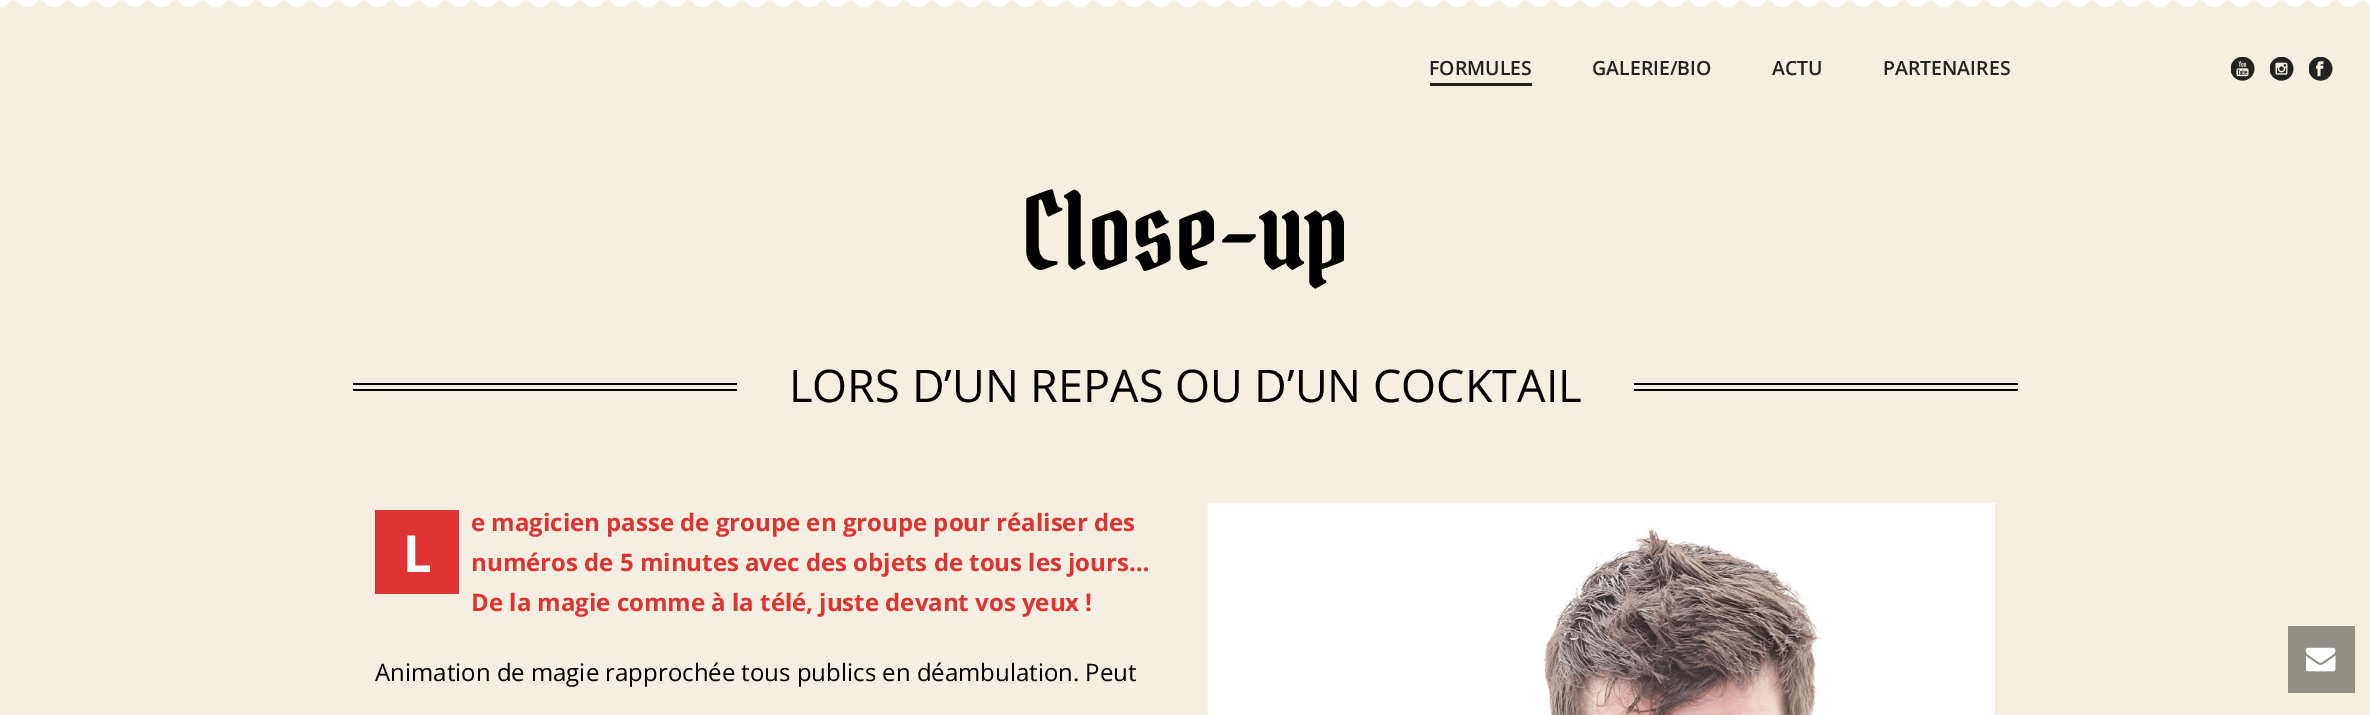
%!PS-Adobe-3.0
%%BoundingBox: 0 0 2370 715
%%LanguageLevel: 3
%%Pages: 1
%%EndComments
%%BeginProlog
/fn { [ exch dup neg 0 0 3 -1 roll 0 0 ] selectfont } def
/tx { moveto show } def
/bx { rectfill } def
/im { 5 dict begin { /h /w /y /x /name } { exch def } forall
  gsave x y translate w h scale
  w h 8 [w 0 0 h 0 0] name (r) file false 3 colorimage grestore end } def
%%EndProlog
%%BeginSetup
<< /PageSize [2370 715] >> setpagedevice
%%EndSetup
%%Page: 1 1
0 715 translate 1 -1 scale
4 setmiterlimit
0.957 0.937 0.878 setrgbcolor
0 0 2370 715 bx
/OpenSans-SemiBold 19.5 fn
0.133 setgray
(FORMULES) 1429 75 tx
1430 83 102 3 bx
(GALERIE/BIO) 1592 75 tx
(ACTU) 1772 75 tx
(PARTENAIRES) 1883 75 tx
(image0.raw) 2231 57 24 24 im
(image1.raw) 2270 57 24 24 im
(image2.raw) 2309 57 24 24 im
(image3.raw) 0 0 2370 7 im
/PirataOne-Regular 105 fn
0 setgray
(Close-up) 1021 270 tx
353 383 384 2 bx
353 389 384 2 bx
/OpenSans-Regular 45 fn
(LORS D’UN REPAS OU D’UN COCKTAIL) 789 402 tx
1634 383 384 2 bx
1634 389 384 2 bx
/OpenSans-Bold 24 fn
0.867 0.2 0.2 setrgbcolor
(e magicien passe de groupe en groupe pour réaliser des) 471 531 tx
(numéros de 5 minutes avec des objets de tous les jours…) 471 571 tx
(De la magie comme à la télé, juste devant vos yeux !) 471 611 tx
/OpenSans-Regular 24 fn
0 setgray
(Animation de magie rapprochée tous publics en déambulation. Peut) 375 681 tx
0.867 0.2 0.2 setrgbcolor
375 510 84 84 bx
/OpenSans-Bold 51 fn
1 setgray
(L) 403 572 tx
(image4.raw) 1207 502 788 213 im
0.573 0.561 0.525 setrgbcolor
2288 626 67 67 bx
(image5.raw) 2306 647 30 25 im
showpage
%%EOF
